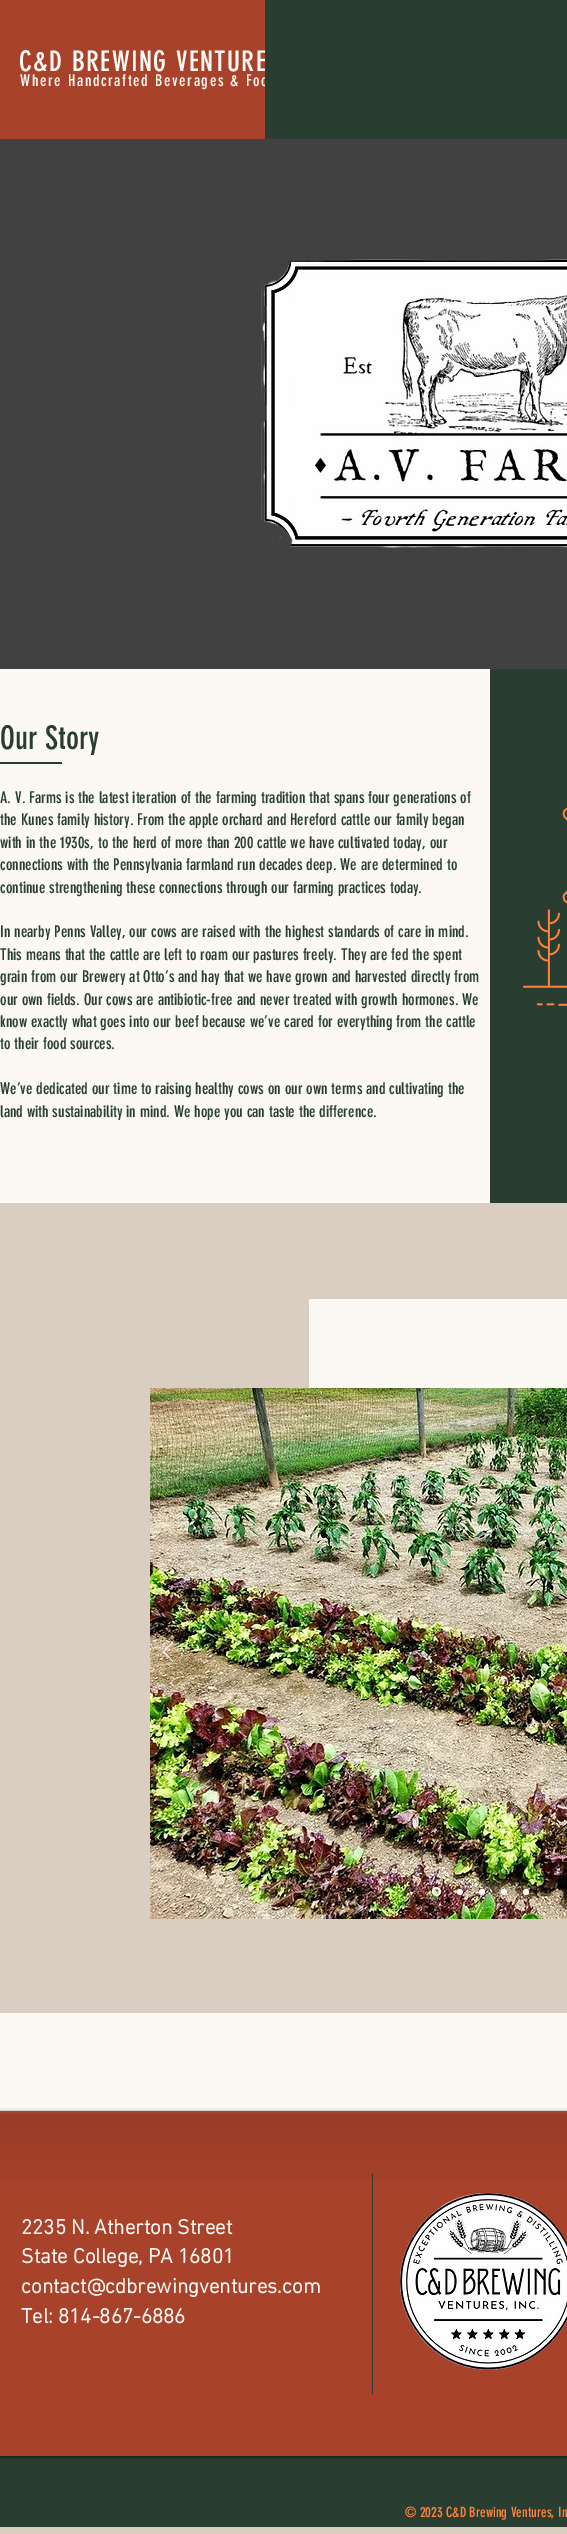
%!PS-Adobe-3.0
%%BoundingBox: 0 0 567 2534
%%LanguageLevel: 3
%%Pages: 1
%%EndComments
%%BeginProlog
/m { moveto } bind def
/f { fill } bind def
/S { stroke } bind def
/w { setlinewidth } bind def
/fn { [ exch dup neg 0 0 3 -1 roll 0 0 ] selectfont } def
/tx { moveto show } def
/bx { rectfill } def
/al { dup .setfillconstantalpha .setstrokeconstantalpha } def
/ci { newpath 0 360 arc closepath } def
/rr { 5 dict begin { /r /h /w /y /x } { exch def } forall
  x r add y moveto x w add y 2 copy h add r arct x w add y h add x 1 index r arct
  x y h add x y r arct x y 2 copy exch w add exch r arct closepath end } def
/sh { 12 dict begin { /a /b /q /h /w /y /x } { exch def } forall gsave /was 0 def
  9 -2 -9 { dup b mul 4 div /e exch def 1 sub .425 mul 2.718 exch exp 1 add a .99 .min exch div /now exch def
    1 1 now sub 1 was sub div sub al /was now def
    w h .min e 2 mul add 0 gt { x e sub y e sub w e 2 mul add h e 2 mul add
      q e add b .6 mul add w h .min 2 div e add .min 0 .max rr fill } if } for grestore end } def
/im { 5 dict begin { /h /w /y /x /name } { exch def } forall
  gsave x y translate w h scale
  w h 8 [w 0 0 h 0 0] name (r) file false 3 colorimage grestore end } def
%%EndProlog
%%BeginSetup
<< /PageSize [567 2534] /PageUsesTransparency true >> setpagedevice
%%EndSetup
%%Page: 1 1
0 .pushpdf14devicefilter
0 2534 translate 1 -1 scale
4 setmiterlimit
0.855 0.808 0.761 setrgbcolor
0 0 567 2534 bx
0.663 0.259 0.169 setrgbcolor
0 0 265 139 bx
/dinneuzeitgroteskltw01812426-Regular 28 fn
0.988 0.976 0.957 setrgbcolor
19 71 m 1.4 0 (C&D BREWING VENTURE) ashow
/dinneuzeitgroteskltw01812426-Regular 16 fn
20 86 m 1.6 0 (Where Handcrafted Beverages & Foo) ashow
0.161 0.243 0.192 setrgbcolor
265 0 302 139 bx
0.255 setgray
0 139 567 530 bx
(image0.raw) 261 259 306 290 im
0.988 0.976 0.957 setrgbcolor
0 669 490 534 bx
/dinneuzeitgroteskltw01812426-Regular 32 fn
0.161 0.243 0.192 setrgbcolor
(Our Story) 0 749 tx
0 762 62 2 bx
/dinneuzeitgroteskltw01812426-Regular 16 fn
(A. V. Farms is the latest iteration of the farming tradition that spans four generations of) 0 803 tx
(the Kunes family history. From the apple orchard and Hereford cattle our family began) 0 825 tx
(with in the 1930s, to the herd of more than 200 cattle we have cultivated today, our) 0 848 tx
(connections with the Pennsylvania farmland run decades deep. We are determined to) 0 870 tx
(continue strengthening these connections through our farming practices today.) 0 893 tx
(In nearby Penns Valley, our cows are raised with the highest standards of care in mind.) 0 937 tx
(This means that the cattle are left to roam our pastures freely. They are fed the spent) 0 960 tx
(grain from our Brewery at Otto’s and hay that we have grown and harvested directly from) 0 982 tx
(our own fields. Our cows are antibiotic-free and never treated with growth hormones. We) 0 1005 tx
(know exactly what goes into our beef because we’ve cared for everything from the cattle) 0 1027 tx
(to their food sources.) 0 1049 tx
(We’ve dedicated our time to raising healthy cows on our own terms and cultivating the) 0 1094 tx
(land with sustainability in mind. We hope you can taste the difference.) 0 1117 tx
490 669 77 534 bx
(image1.raw) 523 807 44 199 im
0.988 0.976 0.957 setrgbcolor
309 1299 258 89 bx
(image2.raw) 150 1388 417 531 im
(image3.raw) 163 1642 10 20 im
2 w
436.5 1891.5 3.5 ci S
460 1892 3 ci f
482 1892 3 ci f
504 1892 3 ci f
526 1892 3 ci f
0 2013 567 98 bx
0.161 0.243 0.192 setrgbcolor
0 2456 567 71 bx
0 setgray
-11 2112 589 345 5 2 0.6 sh
0.663 0.259 0.169 setrgbcolor
0 2111 567 345 bx
(image4.raw) 0 2114 567 65 im
/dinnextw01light-Bold 21 fn
0.988 0.976 0.957 setrgbcolor
(2235 N. Atherton Street) 21 2234 tx
(State College, PA 16801) 21 2263 tx
(contact@cdbrewingventures.com) 21 2293 tx
0.161 0.243 0.192 setrgbcolor
372 2173 1 221 bx
(image5.raw) 400 2193 167 177 im
0.988 0.976 0.957 setrgbcolor
(Tel: 814-867-6886) 21 2323 tx
/dinneuzeitgroteskltw01812426-Regular 14 fn
0.996 0.514 0.251 setrgbcolor
(© 2023 C&D Brewing Ventures, In) 405 2517 tx
.poppdf14devicefilter showpage
%%EOF
